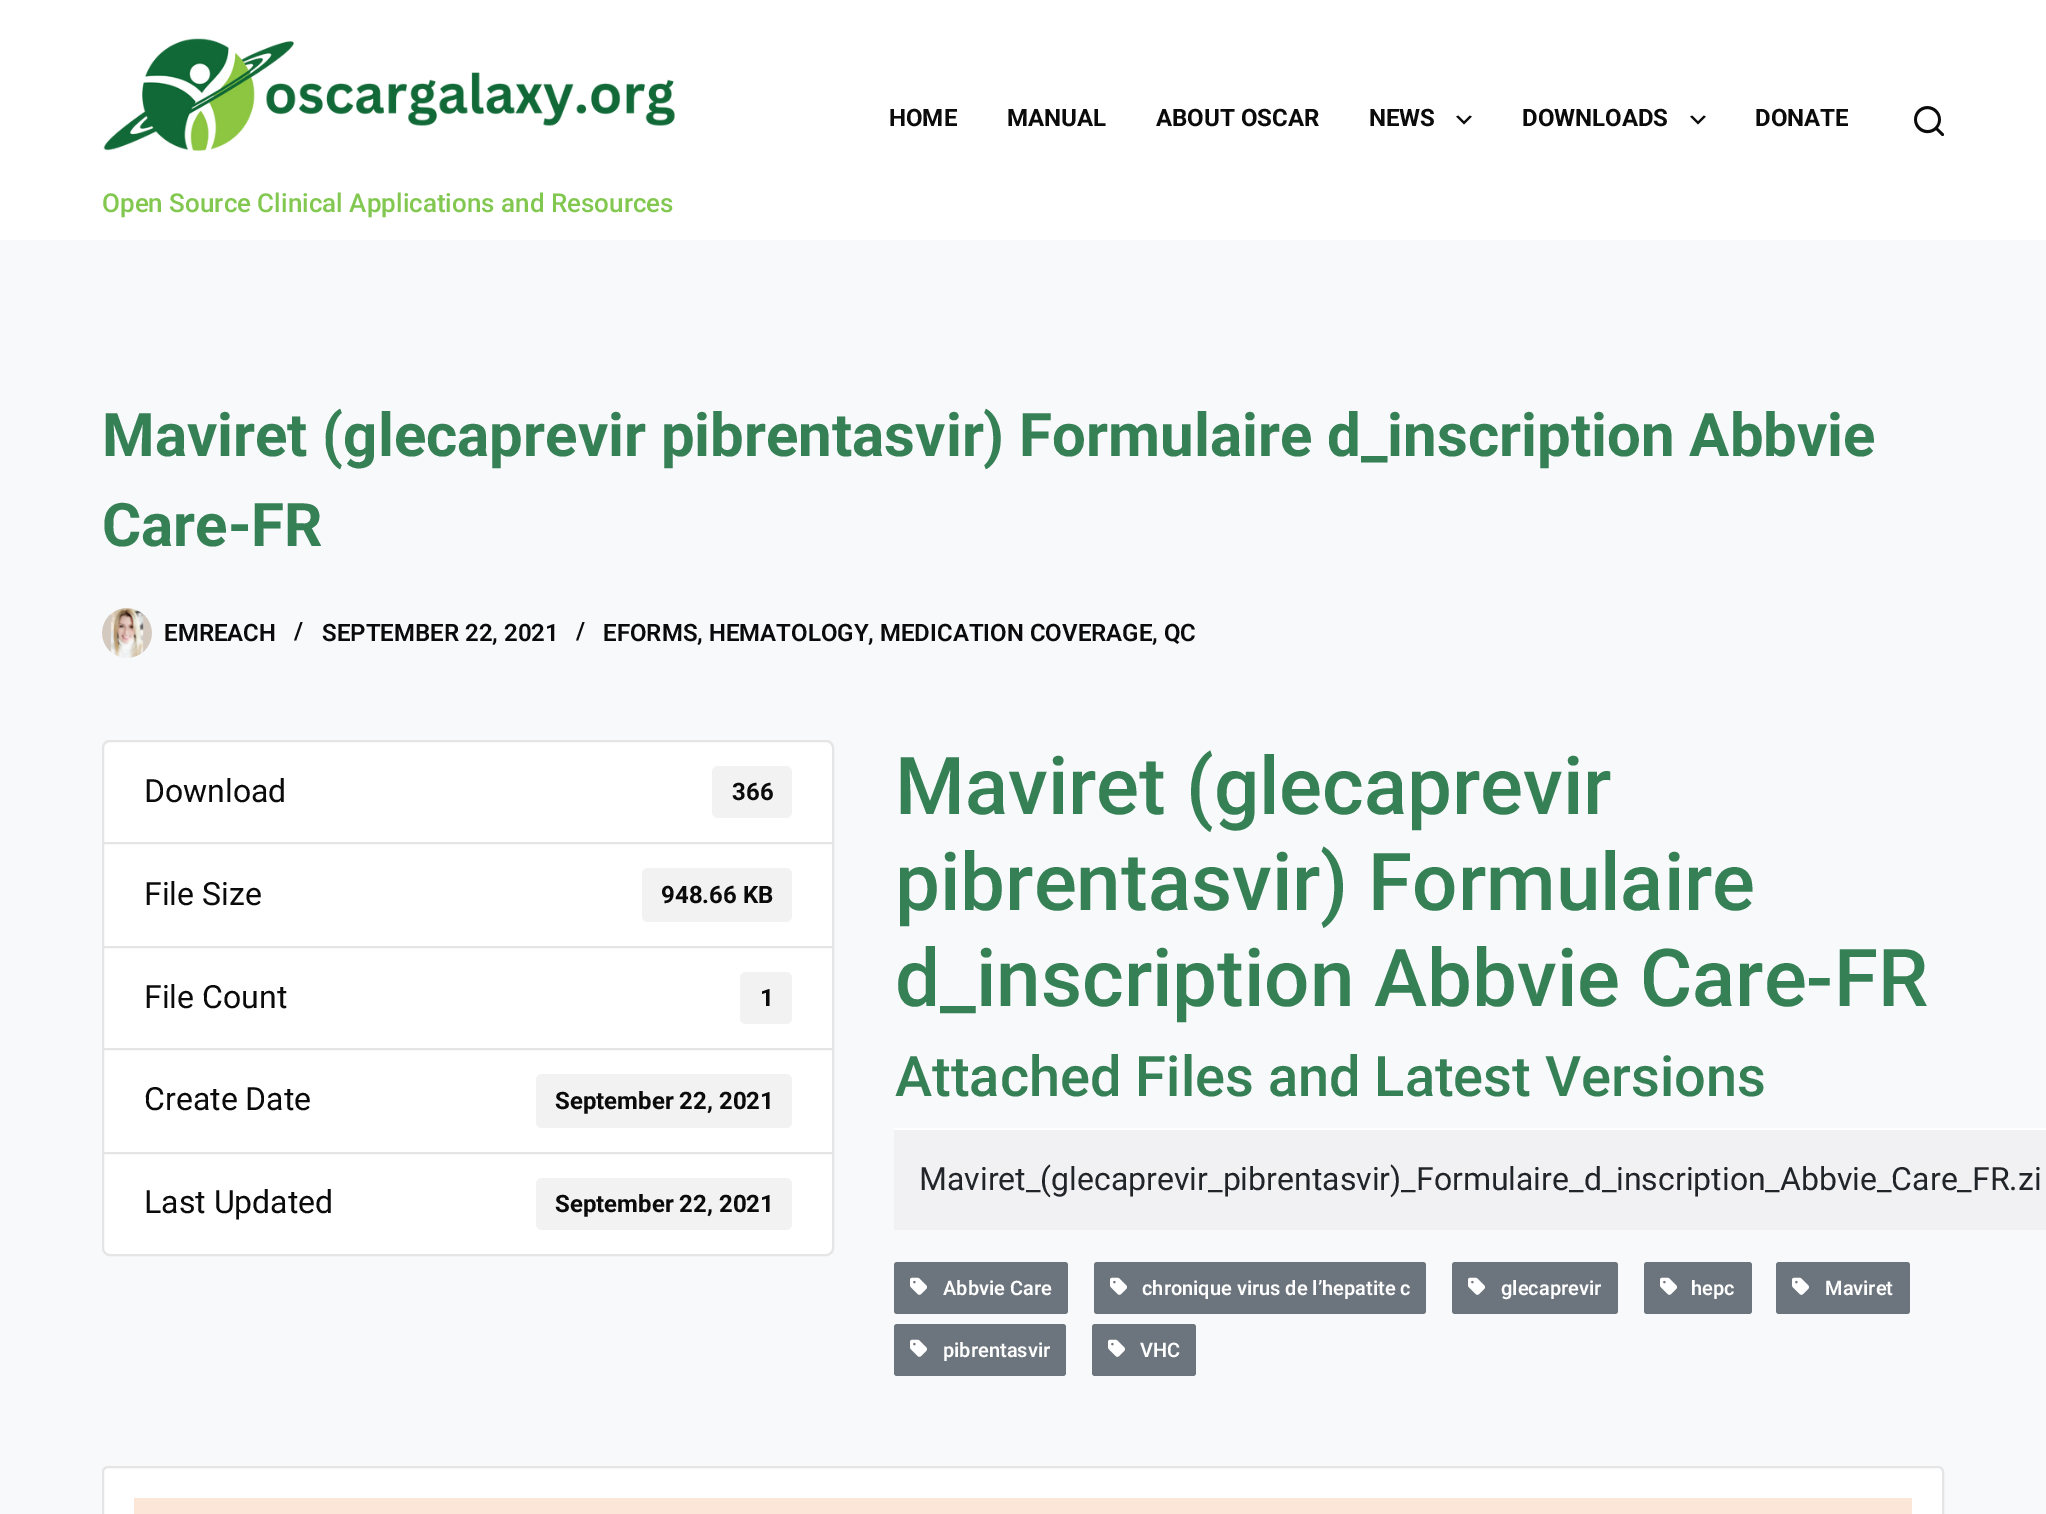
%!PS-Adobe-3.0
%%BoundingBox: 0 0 2046 1514
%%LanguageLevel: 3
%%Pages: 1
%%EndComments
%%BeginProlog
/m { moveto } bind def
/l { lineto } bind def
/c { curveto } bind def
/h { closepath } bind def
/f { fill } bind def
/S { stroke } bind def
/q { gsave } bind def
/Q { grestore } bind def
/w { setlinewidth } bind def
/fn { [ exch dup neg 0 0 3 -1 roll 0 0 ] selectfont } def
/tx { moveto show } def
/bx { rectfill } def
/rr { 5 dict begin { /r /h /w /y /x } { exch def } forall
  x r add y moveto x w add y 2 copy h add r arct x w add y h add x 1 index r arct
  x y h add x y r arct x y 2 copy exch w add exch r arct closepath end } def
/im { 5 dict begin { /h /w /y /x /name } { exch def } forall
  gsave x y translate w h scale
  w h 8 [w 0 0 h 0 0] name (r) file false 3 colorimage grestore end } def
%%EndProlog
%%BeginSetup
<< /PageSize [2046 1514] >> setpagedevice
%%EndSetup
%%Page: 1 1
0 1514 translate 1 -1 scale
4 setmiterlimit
0.973 0.976 0.984 setrgbcolor
0 0 2046 1514 bx
1 setgray
0 0 2046 240 bx
/Roboto-Bold 24 fn
0.043 setgray
(HOME) 889 126 tx
(MANUAL) 1007 126 tx
(ABOUT OSCAR) 1156 126 tx
(NEWS) 1369 126 tx
(image0.raw) 1456 115 16 10 im
(DOWNLOADS) 1522 126 tx
(image0.raw) 1690 115 16 10 im
(DONATE) 1755 126 tx
(image1.raw) 1914 106 30 30 im
(image2.raw) 103 38 572 113 im
/Roboto-Medium 26 fn
0.51 0.784 0.314 setrgbcolor
(Open Source Clinical Applications and Resources) 102 212 tx
/Roboto-Bold 60 fn
0.212 0.502 0.337 setrgbcolor
(Maviret \(glecaprevir pibrentasvir\) Formulaire d_inscription Abbvie) 102 456 tx
(Care-FR) 102 546 tx
(image3.raw) 102 608 50 50 im
/Roboto-SemiBold 24 fn
0.043 setgray
(EMREACH) 164 641 tx
(/) 294 639 tx
(SEPTEMBER 22, 2021) 322 641 tx
(/) 576 639 tx
(EFORMS, HEMATOLOGY, MEDICATION COVERAGE, QC) 603 641 tx
1 setgray
110 741 m 826 741 l 830 741 833 744 833 748 c 833 843 l 103 843 l 103 748 l 103 744 106 741 110 741 c h q f Q
0.898 setgray
2 w
S
/Roboto-Regular 32 fn
0.043 setgray
(Download) 144 802 tx
0.949 setgray
712 766 80 52 6 rr f
/Roboto-Bold 24 fn
0.043 setgray
(366) 732 800 tx
1 setgray
103 843 m 833 843 l 833 947 l 103 947 l h q f Q
0.898 setgray
S
/Roboto-Regular 32 fn
0.043 setgray
(File Size) 144 905 tx
0.949 setgray
642 868 150 54 6 rr f
/Roboto-Bold 24 fn
0.043 setgray
(948.66 KB) 661 903 tx
1 setgray
103 947 m 833 947 l 833 1049 l 103 1049 l h q f Q
0.898 setgray
S
/Roboto-Regular 32 fn
0.043 setgray
(File Count) 144 1008 tx
0.949 setgray
740 972 52 52 6 rr f
/Roboto-Bold 24 fn
0.043 setgray
(1) 760 1006 tx
1 setgray
103 1049 m 833 1049 l 833 1153 l 103 1153 l h q f Q
0.898 setgray
S
/Roboto-Regular 32 fn
0.043 setgray
(Create Date) 144 1110 tx
0.949 setgray
536 1074 256 54 6 rr f
/Roboto-Bold 24 fn
0.043 setgray
(September 22, 2021) 555 1109 tx
1 setgray
103 1153 m 833 1153 l 833 1248 l 833 1252 830 1255 826 1255 c 110 1255 l 106 1255 103 1252 103 1248 c h q f Q
0.898 setgray
S
/Roboto-Regular 32 fn
0.043 setgray
(Last Updated) 144 1213 tx
0.949 setgray
536 1178 256 52 6 rr f
/Roboto-Bold 24 fn
0.043 setgray
(September 22, 2021) 555 1212 tx
/Roboto-Medium 80 fn
0.212 0.502 0.337 setrgbcolor
(Maviret \(glecaprevir) 895 814 tx
(pibrentasvir\) Formulaire) 895 910 tx
(d_inscription Abbvie Care-FR) 895 1006 tx
/Roboto-Medium 56 fn
(Attached Files and Latest Versions) 895 1096 tx
0.945 0.945 0.957 setrgbcolor
894 1130 1152 100 bx
1 setgray
894 1128 1152 2 bx
/Roboto-Regular 32 fn
0.129 0.145 0.161 setrgbcolor
(Maviret_\(glecaprevir_pibrentasvir\)_Formulaire_d_inscription_Abbvie_Care_FR.zi) 919 1190 tx
0.424 0.459 0.49 setrgbcolor
894 1262 174 52 3 rr f
(image4.raw) 910 1277 17 18 im
/Roboto-SemiBold 20 fn
1 setgray
(Abbvie Care) 943 1295 tx
0.424 0.459 0.49 setrgbcolor
1094 1262 332 52 3 rr f
(image4.raw) 1110 1277 17 18 im
1 setgray
(chronique virus de l’hepatite c) 1142 1295 tx
0.424 0.459 0.49 setrgbcolor
1452 1262 166 52 3 rr f
(image4.raw) 1468 1277 17 18 im
1 setgray
(glecaprevir) 1501 1295 tx
0.424 0.459 0.49 setrgbcolor
1644 1262 108 52 3 rr f
(image4.raw) 1660 1277 17 18 im
1 setgray
(hepc) 1691 1295 tx
0.424 0.459 0.49 setrgbcolor
1776 1262 134 52 3 rr f
(image4.raw) 1792 1277 17 18 im
1 setgray
(Maviret) 1825 1295 tx
0.424 0.459 0.49 setrgbcolor
894 1324 172 52 3 rr f
(image4.raw) 910 1339 17 18 im
1 setgray
(pibrentasvir) 943 1357 tx
0.424 0.459 0.49 setrgbcolor
1092 1324 104 52 3 rr f
(image4.raw) 1108 1339 17 18 im
1 setgray
(VHC) 1140 1357 tx
103 1467 1840 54 5 rr q f Q
0.898 setgray
S
0.988 0.902 0.847 setrgbcolor
134 1498 1778 16 bx
showpage
%%EOF
